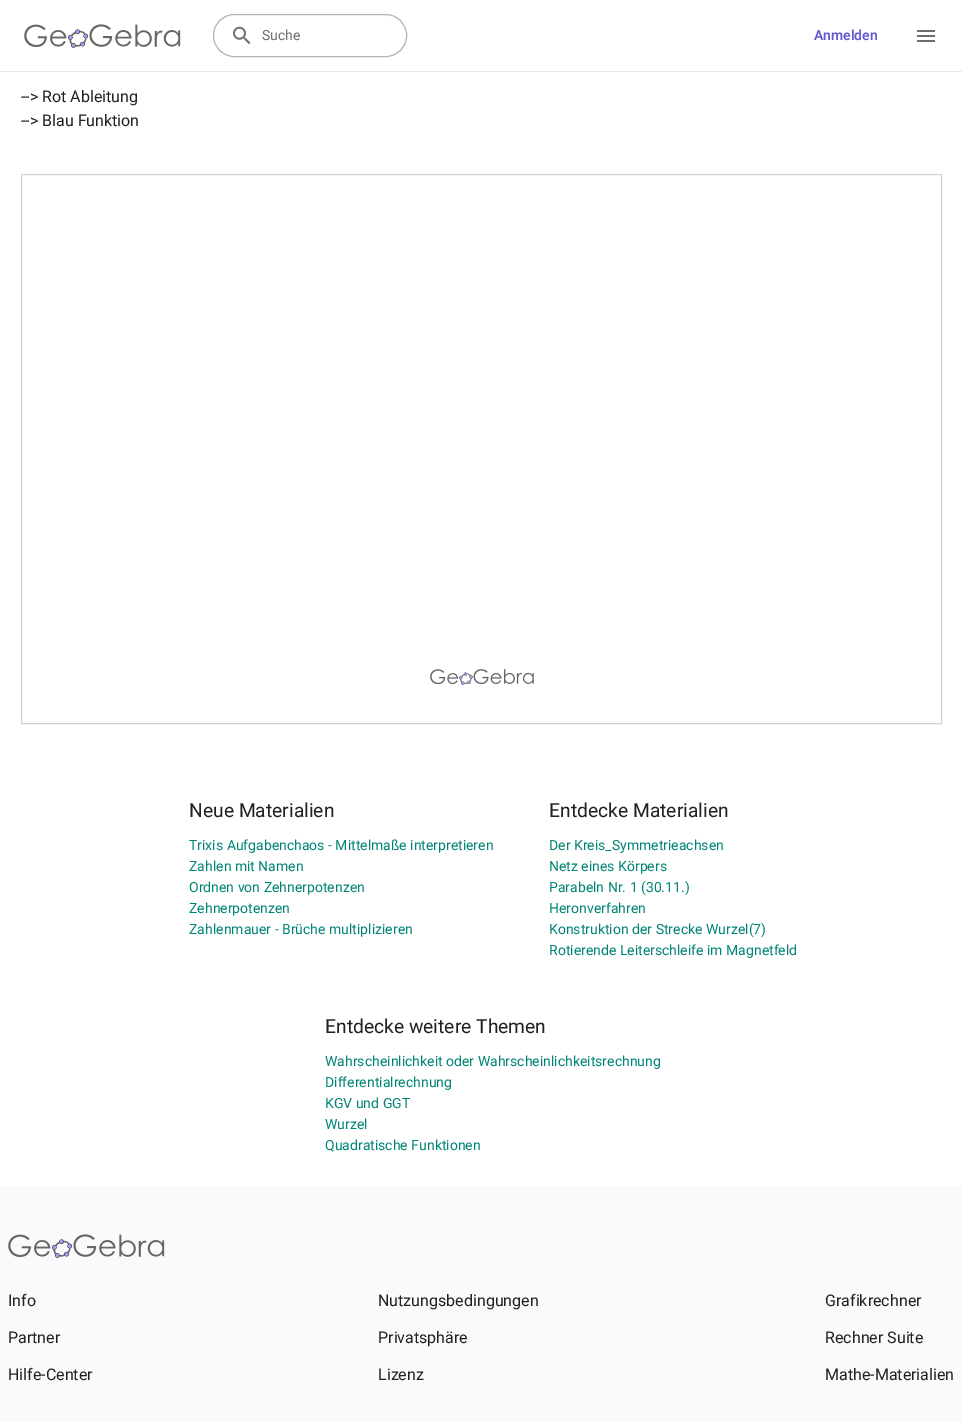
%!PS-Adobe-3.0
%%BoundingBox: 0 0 962 1422
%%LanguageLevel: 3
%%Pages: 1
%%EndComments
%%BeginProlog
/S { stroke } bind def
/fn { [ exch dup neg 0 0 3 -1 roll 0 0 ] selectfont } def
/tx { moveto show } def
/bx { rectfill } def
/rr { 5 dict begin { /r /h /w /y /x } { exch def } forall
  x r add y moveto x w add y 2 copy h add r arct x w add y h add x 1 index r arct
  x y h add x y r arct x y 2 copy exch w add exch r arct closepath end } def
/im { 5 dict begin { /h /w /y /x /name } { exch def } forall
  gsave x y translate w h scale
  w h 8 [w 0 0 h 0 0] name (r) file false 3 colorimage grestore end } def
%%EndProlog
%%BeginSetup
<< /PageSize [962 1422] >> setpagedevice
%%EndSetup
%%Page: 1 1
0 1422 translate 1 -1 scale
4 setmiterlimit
1 setgray
0 0 962 1422 bx
0.902 0.902 0.922 setrgbcolor
0 71 962 1 bx
(image0.raw) 24 24 157 24 im
0.706 0.702 0.729 setrgbcolor
213.5 14.5 193 42 20.5 rr S
(image1.raw) 233 26 18 19 im
/Roboto-Regular 14 fn
0.431 0.427 0.451 setrgbcolor
(Suche) 262 40 tx
/Roboto-SemiBold 14 fn
0.396 0.341 0.824 setrgbcolor
(Anmelden) 814 40 tx
(image2.raw) 917 30 18 12 im
/Roboto-Regular 16 fn
0.129 setgray
(--> Rot Ableitung) 21 102 tx
(--> Blau Funktion) 21 126 tx
(image3.raw) 430 669 104 16 im
0.827 setgray
21.5 174.5 920 549 rectstroke
/Roboto-Regular 19.25 fn
0.129 setgray
(Neue Materialien) 189 817 tx
/Roboto-Regular 14 fn
0 0.518 0.459 setrgbcolor
(Trixis Aufgabenchaos - Mittelmaße interpretieren) 189 850 tx
(Zahlen mit Namen) 189 871 tx
(Ordnen von Zehnerpotenzen) 189 892 tx
(Zehnerpotenzen) 189 913 tx
(Zahlenmauer - Brüche multiplizieren) 189 934 tx
/Roboto-Regular 19.25 fn
0.129 setgray
(Entdecke Materialien) 549 817 tx
/Roboto-Regular 14 fn
0 0.518 0.459 setrgbcolor
(Der Kreis_Symmetrieachsen) 549 850 tx
(Netz eines Körpers) 549 871 tx
(Parabeln Nr. 1 \(30.11.\)) 549 892 tx
(Heronverfahren) 549 913 tx
(Konstruktion der Strecke Wurzel\(7\)) 549 934 tx
(Rotierende Leiterschleife im Magnetfeld) 549 955 tx
/Roboto-Regular 19.25 fn
0.129 setgray
(Entdecke weitere Themen) 325 1033 tx
/Roboto-Regular 14 fn
0 0.518 0.459 setrgbcolor
(Wahrscheinlichkeit oder Wahrscheinlichkeitsrechnung) 325 1066 tx
(Differentialrechnung) 325 1087 tx
(KGV und GGT) 325 1108 tx
(Wurzel) 325 1129 tx
(Quadratische Funktionen) 325 1150 tx
0.98 0.98 0.988 setrgbcolor
0 1186 962 236 bx
(image4.raw) 8 1234 157 24 im
/Roboto-Regular 16 fn
0.129 setgray
(Info) 8 1306 tx
(Partner) 8 1343 tx
(Hilfe-Center) 8 1380 tx
(Nutzungsbedingungen) 378 1306 tx
(Privatsphäre) 378 1343 tx
(Lizenz) 378 1380 tx
(Grafikrechner) 825 1306 tx
(Rechner Suite) 825 1343 tx
(Mathe-Materialien) 825 1380 tx
showpage
%%EOF
